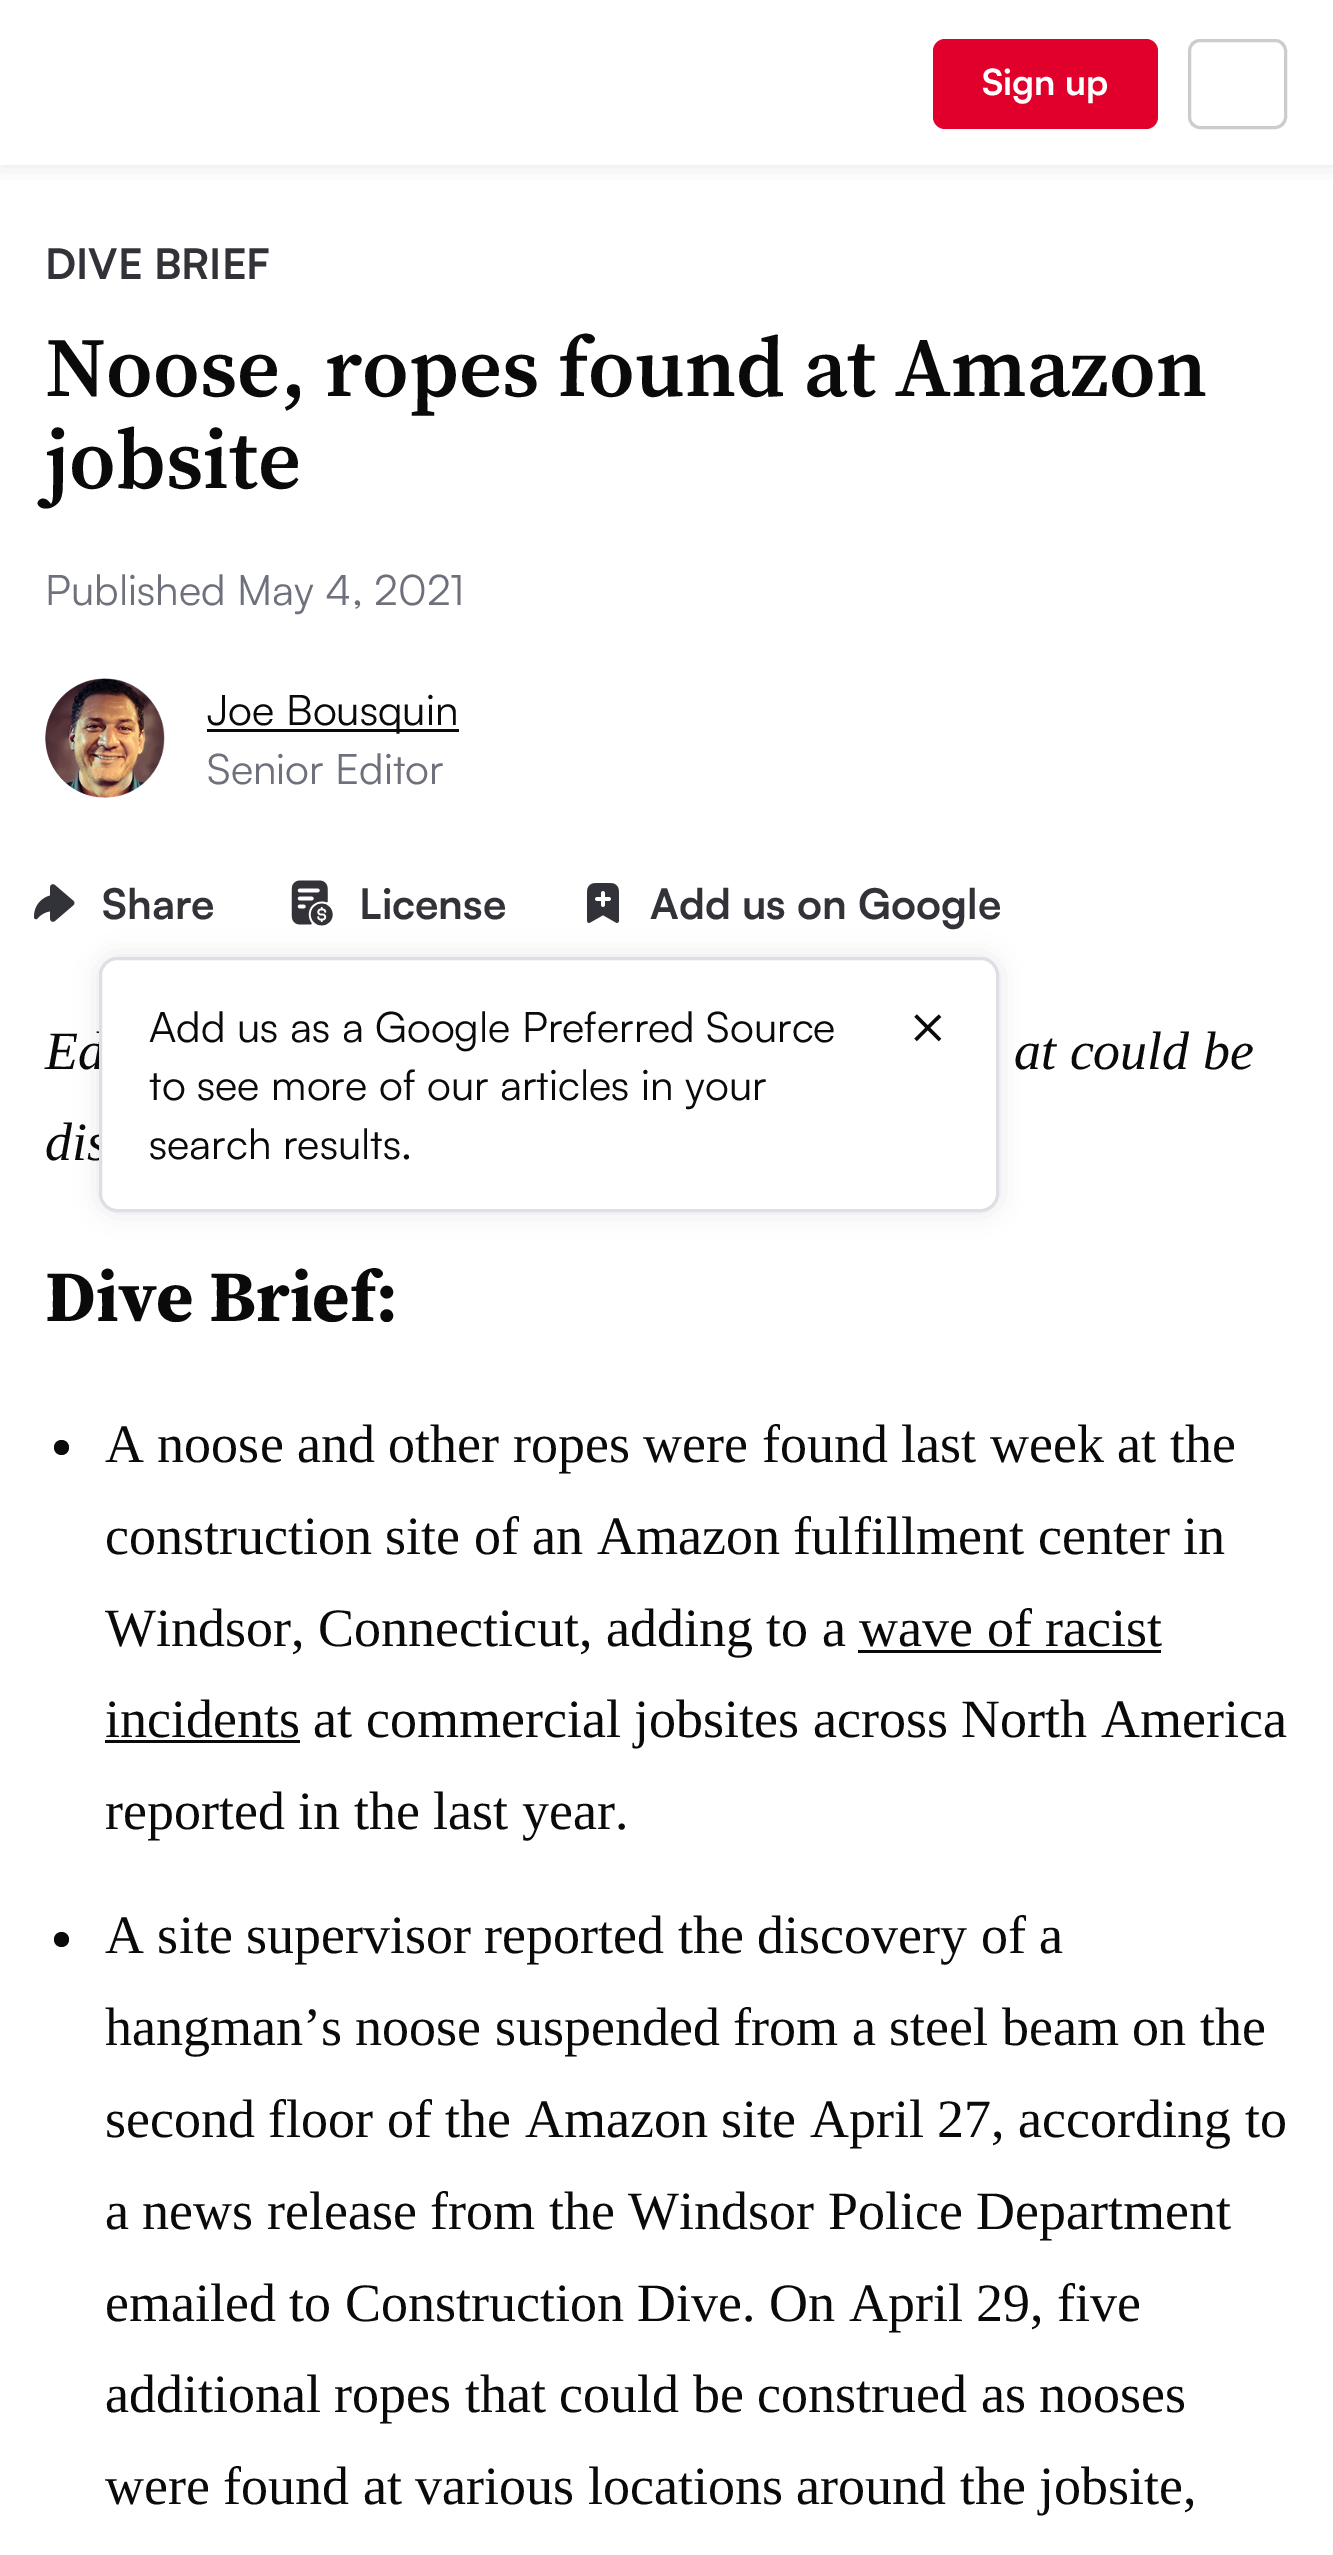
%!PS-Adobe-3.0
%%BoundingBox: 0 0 1333 2555
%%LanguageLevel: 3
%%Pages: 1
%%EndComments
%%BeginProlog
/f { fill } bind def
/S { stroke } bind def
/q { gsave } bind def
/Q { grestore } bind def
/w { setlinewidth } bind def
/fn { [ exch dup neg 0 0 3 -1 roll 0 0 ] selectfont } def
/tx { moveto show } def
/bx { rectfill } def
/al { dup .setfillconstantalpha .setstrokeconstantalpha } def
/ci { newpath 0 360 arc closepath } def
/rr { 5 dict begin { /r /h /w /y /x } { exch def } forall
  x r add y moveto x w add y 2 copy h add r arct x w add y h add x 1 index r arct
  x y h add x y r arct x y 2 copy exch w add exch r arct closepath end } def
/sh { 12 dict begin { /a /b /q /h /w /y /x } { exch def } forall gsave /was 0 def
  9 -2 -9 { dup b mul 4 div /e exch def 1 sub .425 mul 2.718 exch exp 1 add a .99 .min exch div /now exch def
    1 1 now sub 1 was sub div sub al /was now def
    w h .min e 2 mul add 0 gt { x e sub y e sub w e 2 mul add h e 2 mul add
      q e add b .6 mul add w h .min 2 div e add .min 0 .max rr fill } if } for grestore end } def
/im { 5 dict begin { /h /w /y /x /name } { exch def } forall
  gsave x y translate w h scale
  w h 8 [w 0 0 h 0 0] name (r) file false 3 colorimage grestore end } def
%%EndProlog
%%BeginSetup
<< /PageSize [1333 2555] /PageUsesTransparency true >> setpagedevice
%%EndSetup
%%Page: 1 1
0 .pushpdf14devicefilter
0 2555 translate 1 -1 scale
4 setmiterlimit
1 setgray
0 0 1333 2555 bx
q
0 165 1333 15 rectclip
0.471 0.471 0.549 setrgbcolor
0 0 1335 165 0 12 0.2 sh
Q
0.878 0 0.169 setrgbcolor
933 39 225 90 12 rr f
/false-Bold 36 fn
1 setgray
(Sign up) 982 95 tx
0.8 setgray
3 w
1189.5 40.5 96 87 10.5 rr S
/false-Bold 42 fn
0.196 0.196 0.224 setrgbcolor
(DIVE BRIEF) 45 279 tx
/SourceSerif4-SemiBold 84 fn
0.039 setgray
(Noose, ropes found at Amazon) 45 396 tx
(jobsite) 45 488 tx
/false-Regular 42 fn
0.431 0.439 0.486 setrgbcolor
(Published May 4, 2021) 45 605 tx
(image0.raw) 45 678 120 120 im
0.039 setgray
207 729 252 3 bx
(Joe Bousquin) 207 725 tx
0.431 0.439 0.486 setrgbcolor
(Senior Editor) 207 784 tx
(image1.raw) 34 884 41 38 im
/false-Bold 42 fn
0.196 0.196 0.224 setrgbcolor
(Share) 102 919 tx
(image2.raw) 291 880 42 46 im
(License) 359 919 tx
(image3.raw) 587 883 32 40 im
(Add us on Google) 650 919 tx
0.471 0.471 0.549 setrgbcolor
99 957 900 255 18 12 0.2 sh
/LiberationSerif-Italic 54 fn
0.039 setgray
(Ed) 45 1069 tx
(dis) 45 1160 tx
1 setgray
100.5 958.5 897 252 16.5 rr q f Q
0.867 0.871 0.902 setrgbcolor
S
/false-Regular 42 fn
0.039 setgray
(Add us as a Google Preferred Source) 149 1042 tx
/false-Regular 60 fn
(×) 908 1048 tx
/false-Regular 42 fn
(to see more of our articles in your) 149 1100 tx
(search results.) 149 1159 tx
/LiberationSerif-Italic 54 fn
(at could be) 1014 1069 tx
/SourceSerif4-Bold 72 fn
(Dive Brief:) 45 1321 tx
61.5 1447.5 7.5 ci f
/LiberationSerif-Regular 54 fn
(A noose and other ropes were found last week at the) 105 1462 tx
(construction site of an Amazon fulfillment center in) 105 1554 tx
(Windsor, Connecticut, adding to a wave of racist) 105 1646 tx
105 1740 195 3 bx
(incidents at commercial jobsites across North America) 105 1737 tx
858 1650 303 3 bx
(reported in the last year.) 105 1829 tx
61.5 1939.5 7.5 ci f
(A site supervisor reported the discovery of a) 105 1953 tx
(hangman’s noose suspended from a steel beam on the) 105 2045 tx
(second floor of the Amazon site April 27, according to) 105 2137 tx
(a news release from the Windsor Police Department) 105 2229 tx
(emailed to Construction Dive. On April 29, five) 105 2321 tx
(additional ropes that could be construed as nooses) 105 2412 tx
(were found at various locations around the jobsite,) 105 2504 tx
.poppdf14devicefilter showpage
%%EOF
